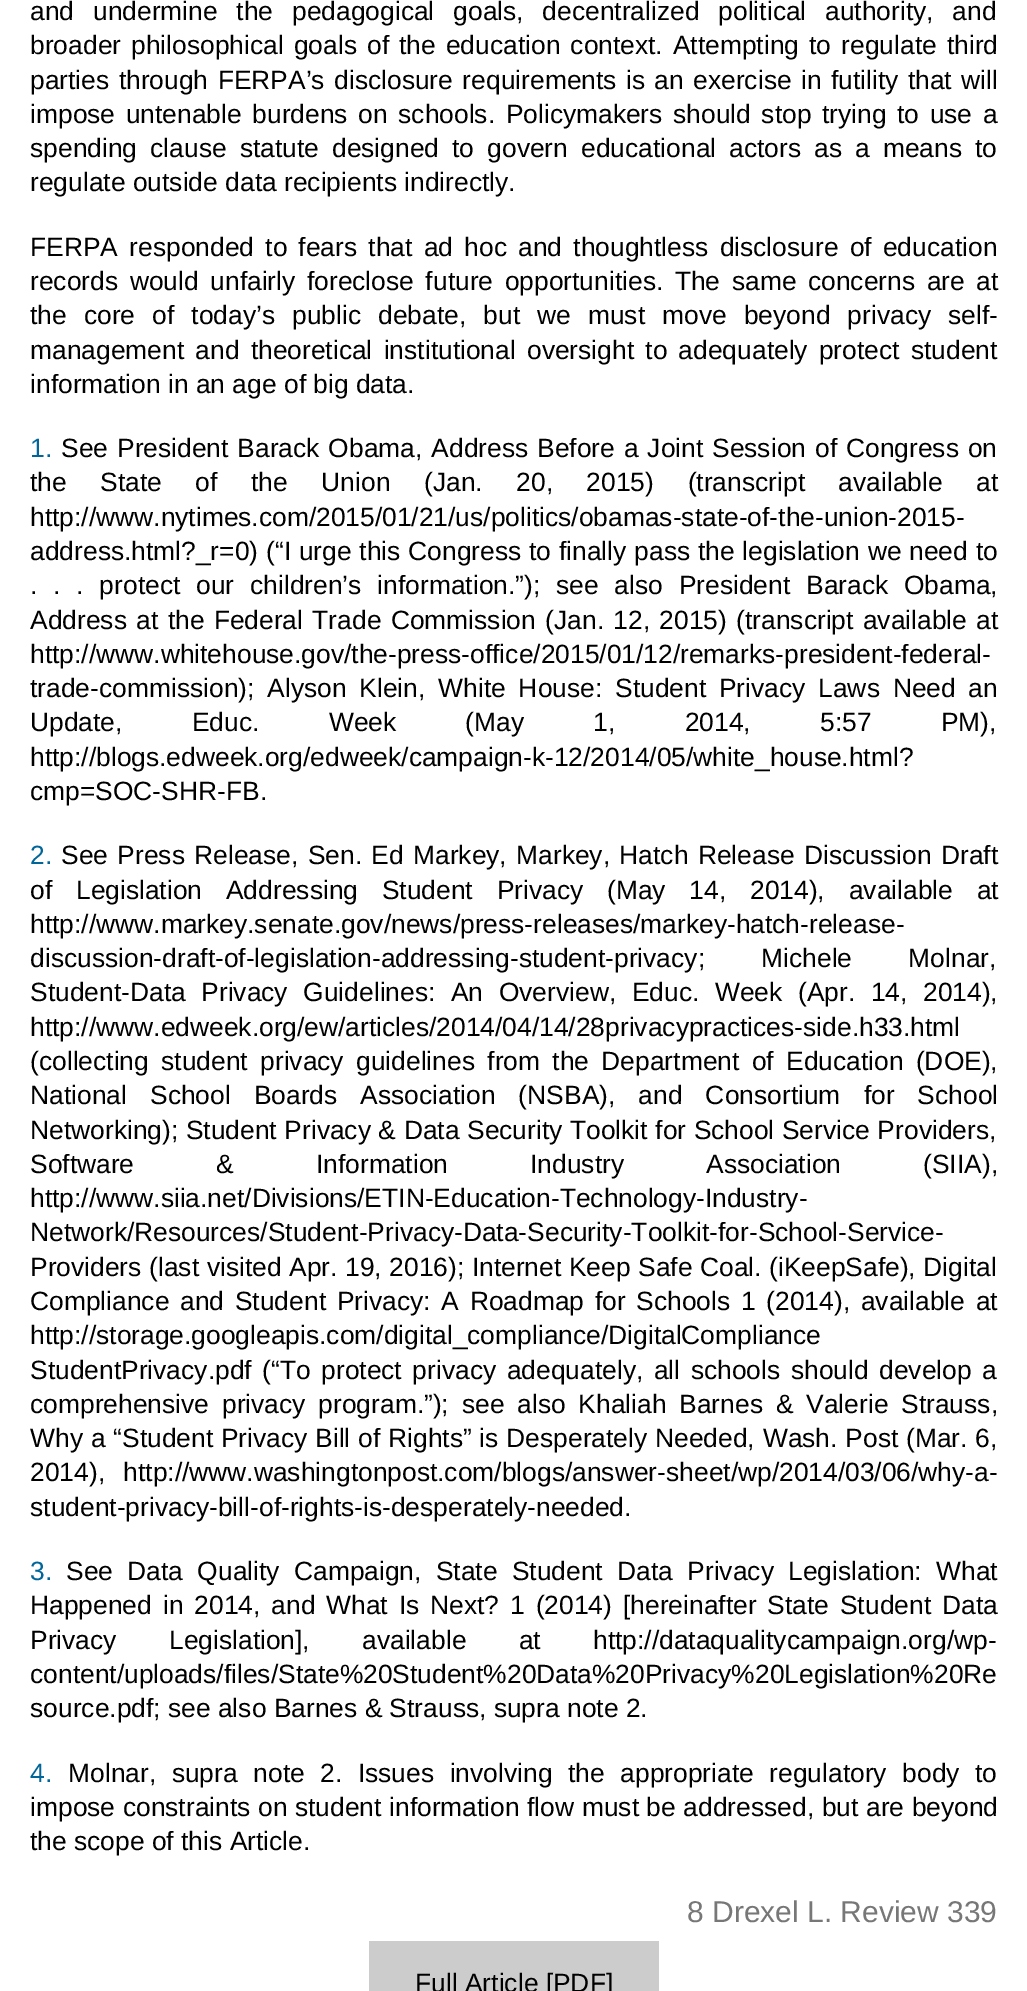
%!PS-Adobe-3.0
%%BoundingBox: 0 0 1027 1991
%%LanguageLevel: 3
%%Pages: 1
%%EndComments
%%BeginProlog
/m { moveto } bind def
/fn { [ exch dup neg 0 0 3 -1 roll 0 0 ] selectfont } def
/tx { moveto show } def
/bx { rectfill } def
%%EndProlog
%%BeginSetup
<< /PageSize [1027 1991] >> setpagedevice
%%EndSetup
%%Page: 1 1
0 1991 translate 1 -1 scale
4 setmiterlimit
1 setgray
0 0 1027 1991 bx
/LiberationSans-Regular 26.4 fn
0 setgray
30 20 m 11.5 0 32 (and undermine the pedagogical goals, decentralized political authority, and) widthshow
30 54 m 2.75 0 32 (broader philosophical goals of the education context. Attempting to regulate third) widthshow
30 89 m 2.1 0 32 (parties through FERPA’s disclosure requirements is an exercise in futility that will) widthshow
30 123 m 3.25 0 32 (impose untenable burdens on schools. Policymakers should stop trying to use a) widthshow
30 157 m 5.75 0 32 (spending clause statute designed to govern educational actors as a means to) widthshow
(regulate outside data recipients indirectly.) 30 191 tx
30 256 m 3.9 0 32 (FERPA responded to fears that ad hoc and thoughtless disclosure of education) widthshow
30 290 m 4.25 0 32 (records would unfairly foreclose future opportunities. The same concerns are at) widthshow
30 324 m 9.75 0 32 (the core of today’s public debate, but we must move beyond privacy self-) widthshow
30 359 m 3.9 0 32 (management and theoretical institutional oversight to adequately protect student) widthshow
(information in an age of big data.) 30 393 tx
0 0.4 0.6 setrgbcolor
(1.) 30 457 tx
0 setgray
61 457 m 1.6 0 32 (See President Barack Obama, Address Before a Joint Session of Congress on) widthshow
30 491 m 26.25 0 32 (the State of the Union \(Jan. 20, 2015\) \(transcript available at) widthshow
(http://www.nytimes.com/2015/01/21/us/politics/obamas-state-of-the-union-2015-) 30 526 tx
30 560 m 0.5 0 32 (address.html?_r=0\) \(“I urge this Congress to finally pass the legislation we need to) widthshow
30 594 m 8.5 0 32 (. . . protect our children’s information.”\); see also President Barack Obama,) widthshow
30 629 m 2 0 32 (Address at the Federal Trade Commission \(Jan. 12, 2015\) \(transcript available at) widthshow
(http://www.whitehouse.gov/the-press-office/2015/01/12/remarks-president-federal-) 30 663 tx
30 697 m 5.5 0 32 (trade-commission\); Alyson Klein, White House: Student Privacy Laws Need an) widthshow
30 731 m 62 0 32 (Update, Educ. Week \(May 1, 2014, 5:57 PM\),) widthshow
(http://blogs.edweek.org/edweek/campaign-k-12/2014/05/white_house.html?) 30 766 tx
(cmp=SOC-SHR-FB.) 30 800 tx
0 0.4 0.6 setrgbcolor
(2.) 30 864 tx
0 setgray
61 864 m 2 0 32 (See Press Release, Sen. Ed Markey, Markey, Hatch Release Discussion Draft) widthshow
30 899 m 16.5 0 32 (of Legislation Addressing Student Privacy \(May 14, 2014\), available at) widthshow
(http://www.markey.senate.gov/news/press-releases/markey-hatch-release-) 30 933 tx
30 967 m 49 0 32 (discussion-draft-of-legislation-addressing-student-privacy; Michele Molnar,) widthshow
30 1001 m 8.25 0 32 (Student-Data Privacy Guidelines: An Overview, Educ. Week \(Apr. 14, 2014\),) widthshow
(http://www.edweek.org/ew/articles/2014/04/14/28privacypractices-side.h33.html) 30 1036 tx
30 1070 m 5 0 32 (\(collecting student privacy guidelines from the Department of Education \(DOE\),) widthshow
30 1104 m 15.75 0 32 (National School Boards Association \(NSBA\), and Consortium for School) widthshow
30 1139 m 0.25 0 32 (Networking\); Student Privacy & Data Security Toolkit for School Service Providers,) widthshow
30 1173 m 74.75 0 32 (Software & Information Industry Association \(SIIA\),) widthshow
(http://www.siia.net/Divisions/ETIN-Education-Technology-Industry-) 30 1207 tx
(Network/Resources/Student-Privacy-Data-Security-Toolkit-for-School-Service-) 30 1241 tx
30 1276 m 0.25 0 32 (Providers \(last visited Apr. 19, 2016\); Internet Keep Safe Coal. \(iKeepSafe\), Digital) widthshow
30 1310 m 3.4 0 32 (Compliance and Student Privacy: A Roadmap for Schools 1 \(2014\), available at) widthshow
(http://storage.googleapis.com/digital_compliance/DigitalCompliance) 30 1344 tx
30 1379 m 3.25 0 32 (StudentPrivacy.pdf \(“To protect privacy adequately, all schools should develop a) widthshow
30 1413 m 5.5 0 32 (comprehensive privacy program.”\); see also Khaliah Barnes & Valerie Strauss,) widthshow
30 1447 m 0.5 0 32 (Why a “Student Privacy Bill of Rights” is Desperately Needed, Wash. Post \(Mar. 6,) widthshow
30 1481 m 11 0 32 (2014\), http://www.washingtonpost.com/blogs/answer-sheet/wp/2014/03/06/why-a-) widthshow
(student-privacy-bill-of-rights-is-desperately-needed.) 30 1516 tx
0 0.4 0.6 setrgbcolor
(3.) 30 1580 tx
0 setgray
66 1580 m 7 0 32 (See Data Quality Campaign, State Student Data Privacy Legislation: What) widthshow
30 1614 m 3.6 0 32 (Happened in 2014, and What Is Next? 1 \(2014\) [hereinafter State Student Data) widthshow
30 1649 m 45 0 32 (Privacy Legislation], available at http://dataqualitycampaign.org/wp-) widthshow
(content/uploads/files/State%20Student%20Data%20Privacy%20Legislation%20Re) 30 1683 tx
(source.pdf; see also Barnes & Strauss, supra note 2.) 30 1717 tx
0 0.4 0.6 setrgbcolor
(4.) 30 1782 tx
0 setgray
68 1782 m 8.25 0 32 (Molnar, supra note 2. Issues involving the appropriate regulatory body to) widthshow
30 1816 m 0.25 0 32 (impose constraints on student information flow must be addressed, but are beyond) widthshow
(the scope of this Article.) 30 1850 tx
/LiberationSans-Regular 30 fn
0.467 setgray
(8 Drexel L. Review 339) 687 1922 tx
0.8 setgray
369 1941 290 50 bx
/LiberationSans-Regular 26.4 fn
0 setgray
(Full Article [PDF]) 415 1992 tx
showpage
%%EOF
